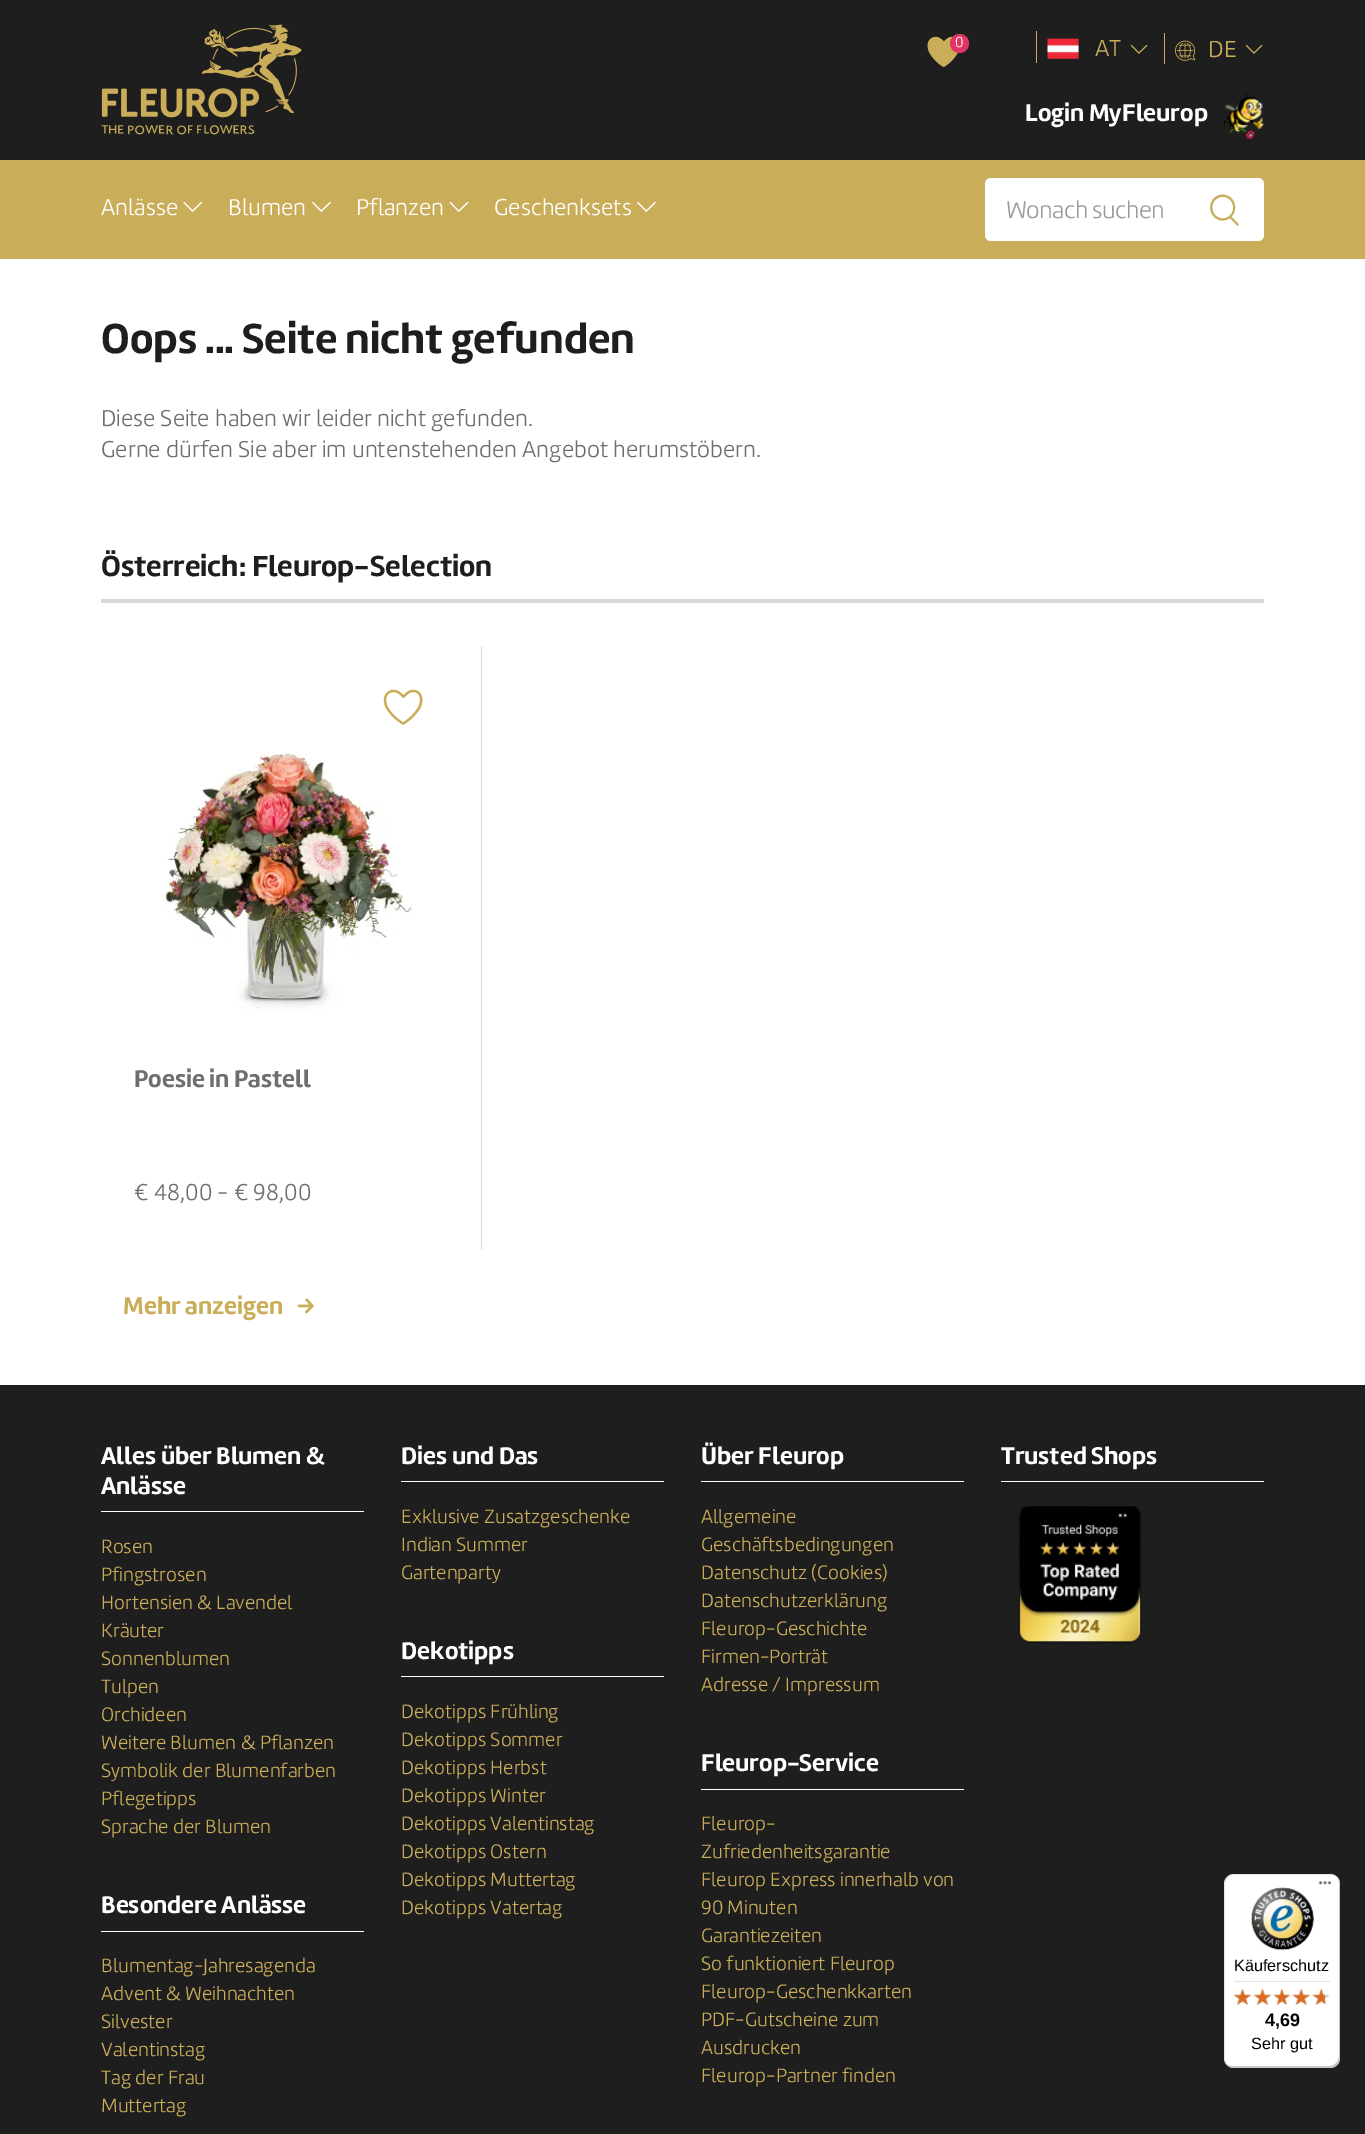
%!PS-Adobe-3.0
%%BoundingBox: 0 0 1365 2134
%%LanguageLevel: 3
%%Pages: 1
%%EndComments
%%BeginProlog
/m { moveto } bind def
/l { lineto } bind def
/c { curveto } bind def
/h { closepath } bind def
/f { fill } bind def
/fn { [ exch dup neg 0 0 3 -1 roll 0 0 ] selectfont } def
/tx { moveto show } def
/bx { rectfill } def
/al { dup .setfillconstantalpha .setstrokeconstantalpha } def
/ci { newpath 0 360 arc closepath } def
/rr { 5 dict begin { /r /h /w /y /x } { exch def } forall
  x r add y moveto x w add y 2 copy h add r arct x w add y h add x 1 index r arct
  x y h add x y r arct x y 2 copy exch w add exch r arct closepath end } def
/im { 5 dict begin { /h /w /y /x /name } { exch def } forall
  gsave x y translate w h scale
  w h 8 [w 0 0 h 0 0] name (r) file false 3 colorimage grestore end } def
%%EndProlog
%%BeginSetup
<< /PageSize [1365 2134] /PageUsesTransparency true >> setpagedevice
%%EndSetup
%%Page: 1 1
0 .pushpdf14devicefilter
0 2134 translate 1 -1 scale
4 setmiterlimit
1 setgray
0 0 1365 2134 bx
0.118 setgray
0 0 1365 160 bx
(image0.raw) 101 24 201 111 im
(image1.raw) 927 36 32 31 im
0.886 0.208 0.396 setrgbcolor
959.5 43.5 9.5 ci f
/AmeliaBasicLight-Light 15 fn
1 setgray
(0) 955 47 tx
/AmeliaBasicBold-Bold 25 fn
(Login MyFleurop) 1025 121 tx
(image2.raw) 1222 90 42 50 im
0.792 0.678 0.349 setrgbcolor
1036 31 1 32 bx
(image3.raw) 1047 37 32 22 im
/AmeliaBasicLight-Light 24 fn
(AT) 1095 56 tx
(image4.raw) 1130 44 18 10 im
1164 33 1 31 bx
(image5.raw) 1175 40 21 21 im
(DE) 1208 57 tx
(image4.raw) 1245 44 18 10 im
0 160 1365 99 bx
/AmeliaBasicLight-Light 23.75 fn
1 setgray
(Anlässe) 101 215 tx
(image6.raw) 183 201 19 11 im
(Blumen) 228 215 tx
(image7.raw) 312 202 19 10 im
(Pflanzen) 356 215 tx
(image8.raw) 449 201 20 11 im
(Geschenksets) 494 215 tx
(image7.raw) 637 202 19 10 im
985 178 279 63 6 rr f
/AmeliaBasicLight-Light 25 fn
0.608 setgray
1006 218 m -0.6 0 (Wonach suchen) ashow
(image9.raw) 1210 194 29 32 im
/AmeliaBasicBold-Bold 43.4 fn
0.118 setgray
(Oops ... Seite nicht gefunden) 101 353 tx
/AmeliaBasicLight-Light 23.75 fn
0.427 0.431 0.443 setrgbcolor
(Diese Seite haben wir leider nicht gefunden.) 101 426 tx
(Gerne dürfen Sie aber im untenstehenden Angebot herumstöbern.) 101 457 tx
0.847 setgray
101 599 1163 4 bx
/AmeliaBasicBold-Bold 30 fn
0.118 setgray
(Österreich: Fleurop-Selection) 101 576 tx
0.847 setgray
481 646 1 604 bx
(image10.raw) 383 689 40 36 im
(image11.raw) 164 752 250 259 im
/AmeliaBasicBold-Bold 25 fn
0.427 0.431 0.443 setrgbcolor
(Poesie in Pastell) 134 1087 tx
/AmeliaBasicLight-Light 23.75 fn
(€ 48,00 - € 98,00) 134 1200 tx
/AmeliaBasicBold-Bold 25 fn
0.792 0.678 0.349 setrgbcolor
(Mehr anzeigen) 123 1314 tx
(image12.raw) 297 1298 17 16 im
0.118 setgray
0 1385 1365 749 bx
1 setgray
101 1511 263 1 bx
(Alles über Blumen &) 101 1464 tx
(Anlässe) 101 1494 tx
/AmeliaBasicLight-Light 20 fn
0.792 0.678 0.349 setrgbcolor
(Rosen) 101 1553 tx
(Pfingstrosen) 101 1581 tx
(Hortensien & Lavendel) 101 1609 tx
(Kräuter) 101 1637 tx
(Sonnenblumen) 101 1665 tx
(Tulpen) 101 1693 tx
(Orchideen) 101 1721 tx
(Weitere Blumen & Pflanzen) 101 1749 tx
(Symbolik der Blumenfarben) 101 1777 tx
(Pflegetipps) 101 1805 tx
(Sprache der Blumen) 101 1833 tx
1 setgray
101 1931 263 1 bx
/AmeliaBasicBold-Bold 25 fn
(Besondere Anlässe) 101 1913 tx
/AmeliaBasicLight-Light 20 fn
0.792 0.678 0.349 setrgbcolor
(Blumentag-Jahresagenda) 101 1972 tx
(Advent & Weihnachten) 101 2000 tx
(Silvester) 101 2028 tx
(Valentinstag) 101 2056 tx
(Tag der Frau) 101 2084 tx
(Muttertag) 101 2112 tx
1 setgray
401 1481 263 1 bx
/AmeliaBasicBold-Bold 25 fn
(Dies und Das) 401 1464 tx
/AmeliaBasicLight-Light 20 fn
0.792 0.678 0.349 setrgbcolor
(Exklusive Zusatzgeschenke) 401 1523 tx
(Indian Summer) 401 1551 tx
(Gartenparty) 401 1579 tx
1 setgray
401 1676 263 1 bx
/AmeliaBasicBold-Bold 25 fn
(Dekotipps) 401 1659 tx
/AmeliaBasicLight-Light 20 fn
0.792 0.678 0.349 setrgbcolor
(Dekotipps Frühling) 401 1718 tx
(Dekotipps Sommer) 401 1746 tx
(Dekotipps Herbst) 401 1774 tx
(Dekotipps Winter) 401 1802 tx
(Dekotipps Valentinstag) 401 1830 tx
(Dekotipps Ostern) 401 1858 tx
(Dekotipps Muttertag) 401 1886 tx
(Dekotipps Vatertag) 401 1914 tx
1 setgray
701 1481 263 1 bx
/AmeliaBasicBold-Bold 25 fn
(Über Fleurop) 701 1464 tx
/AmeliaBasicLight-Light 20 fn
0.792 0.678 0.349 setrgbcolor
(Allgemeine) 701 1523 tx
(Geschäftsbedingungen) 701 1551 tx
(Datenschutz \(Cookies\)) 701 1579 tx
(Datenschutzerklärung) 701 1607 tx
(Fleurop-Geschichte) 701 1635 tx
(Firmen-Porträt) 701 1663 tx
(Adresse / Impressum) 701 1691 tx
1 setgray
701 1789 263 1 bx
/AmeliaBasicBold-Bold 25 fn
(Fleurop-Service) 701 1771 tx
/AmeliaBasicLight-Light 20 fn
0.792 0.678 0.349 setrgbcolor
(Fleurop-) 701 1830 tx
(Zufriedenheitsgarantie) 701 1858 tx
(Fleurop Express innerhalb von) 701 1886 tx
(90 Minuten) 701 1914 tx
(Garantiezeiten) 701 1942 tx
(So funktioniert Fleurop) 701 1970 tx
(Fleurop-Geschenkkarten) 701 1998 tx
(PDF-Gutscheine zum) 701 2026 tx
(Ausdrucken) 701 2054 tx
(Fleurop-Partner finden) 701 2082 tx
1 setgray
1001 1481 263 1 bx
/AmeliaBasicBold-Bold 25 fn
(Trusted Shops) 1001 1464 tx
(image13.raw) 1018 1506 124 138 im
1224 1874 116 194 10 rr f
0.1 al
0 setgray
1235 1875 m 1331 1875 l 1333 1875 1335 1875 1336 1876 c 1335 1875 1332 1874 1330 1874 c 1234 1874 l 1228 1874 1224 1878 1224 1884 c 1224 2058 l 1224 2061 1225 2064 1228 2066 c 1226 2064 1225 2061 1225 2059 c 1225 1885 l 1225 1879 1229 1875 1235 1875 c h f
0.2 al
1226 2064 m 1228 2066 1231 2068 1234 2068 c 1330 2068 l 1336 2068 1340 2064 1340 2058 c 1340 1884 l 1340 1882 1339 1880 1338 1878 c 1339 1879 1339 1881 1339 1882 c 1339 2056 l 1339 2062 1334 2066 1329 2066 c 1232 2066 l 1230 2066 1228 2065 1226 2064 c h f
0.196 setgray
1226 2065 m 1228 2067 1231 2068 1234 2068 c 1330 2068 l 1336 2068 1340 2064 1340 2058 c 1340 1884 l 1340 1882 1339 1879 1338 1878 c 1339 1879 1339 1881 1339 1883 c 1339 2057 l 1339 2062 1335 2067 1329 2067 c 1233 2067 l 1230 2067 1228 2066 1226 2065 c h f
0.3 al
1 setgray
1225 2063 m 1227 2066 1230 2068 1234 2068 c 1330 2068 l 1336 2068 1340 2064 1340 2058 c 1340 1884 l 1340 1881 1339 1878 1336 1876 c 1338 1878 1339 1881 1339 1883 c 1339 2057 l 1339 2062 1335 2067 1329 2067 c 1233 2067 l 1230 2067 1227 2065 1225 2063 c h f
1 al
(image14.raw) 1318 1881 13 4 im
(image15.raw) 1251 1887 63 64 im
/LiberationSans-Regular 16.25 fn
0 setgray
(Käuferschutz) 1234 1971 tx
0.898 setgray
1234 1981 96 1 bx
(image21.raw) 1234 1989 17 16 im
(image16.raw) 1233 1988 18 17 im
(image22.raw) 1254 1989 17 16 im
(image17.raw) 1253 1988 19 17 im
(image23.raw) 1274 1989 16 16 im
(image18.raw) 1273 1988 17 17 im
(image24.raw) 1292 1989 18 16 im
(image19.raw) 1292 1988 18 17 im
(image25.raw) 1312 1989 18 16 im
(image20.raw) 1312 1988 13 17 im
/LiberationSans-Bold 18 fn
0 setgray
(4,69) 1265 2026 tx
/LiberationSans-Regular 16.25 fn
(Sehr gut) 1251 2049 tx
.poppdf14devicefilter showpage
%%EOF
